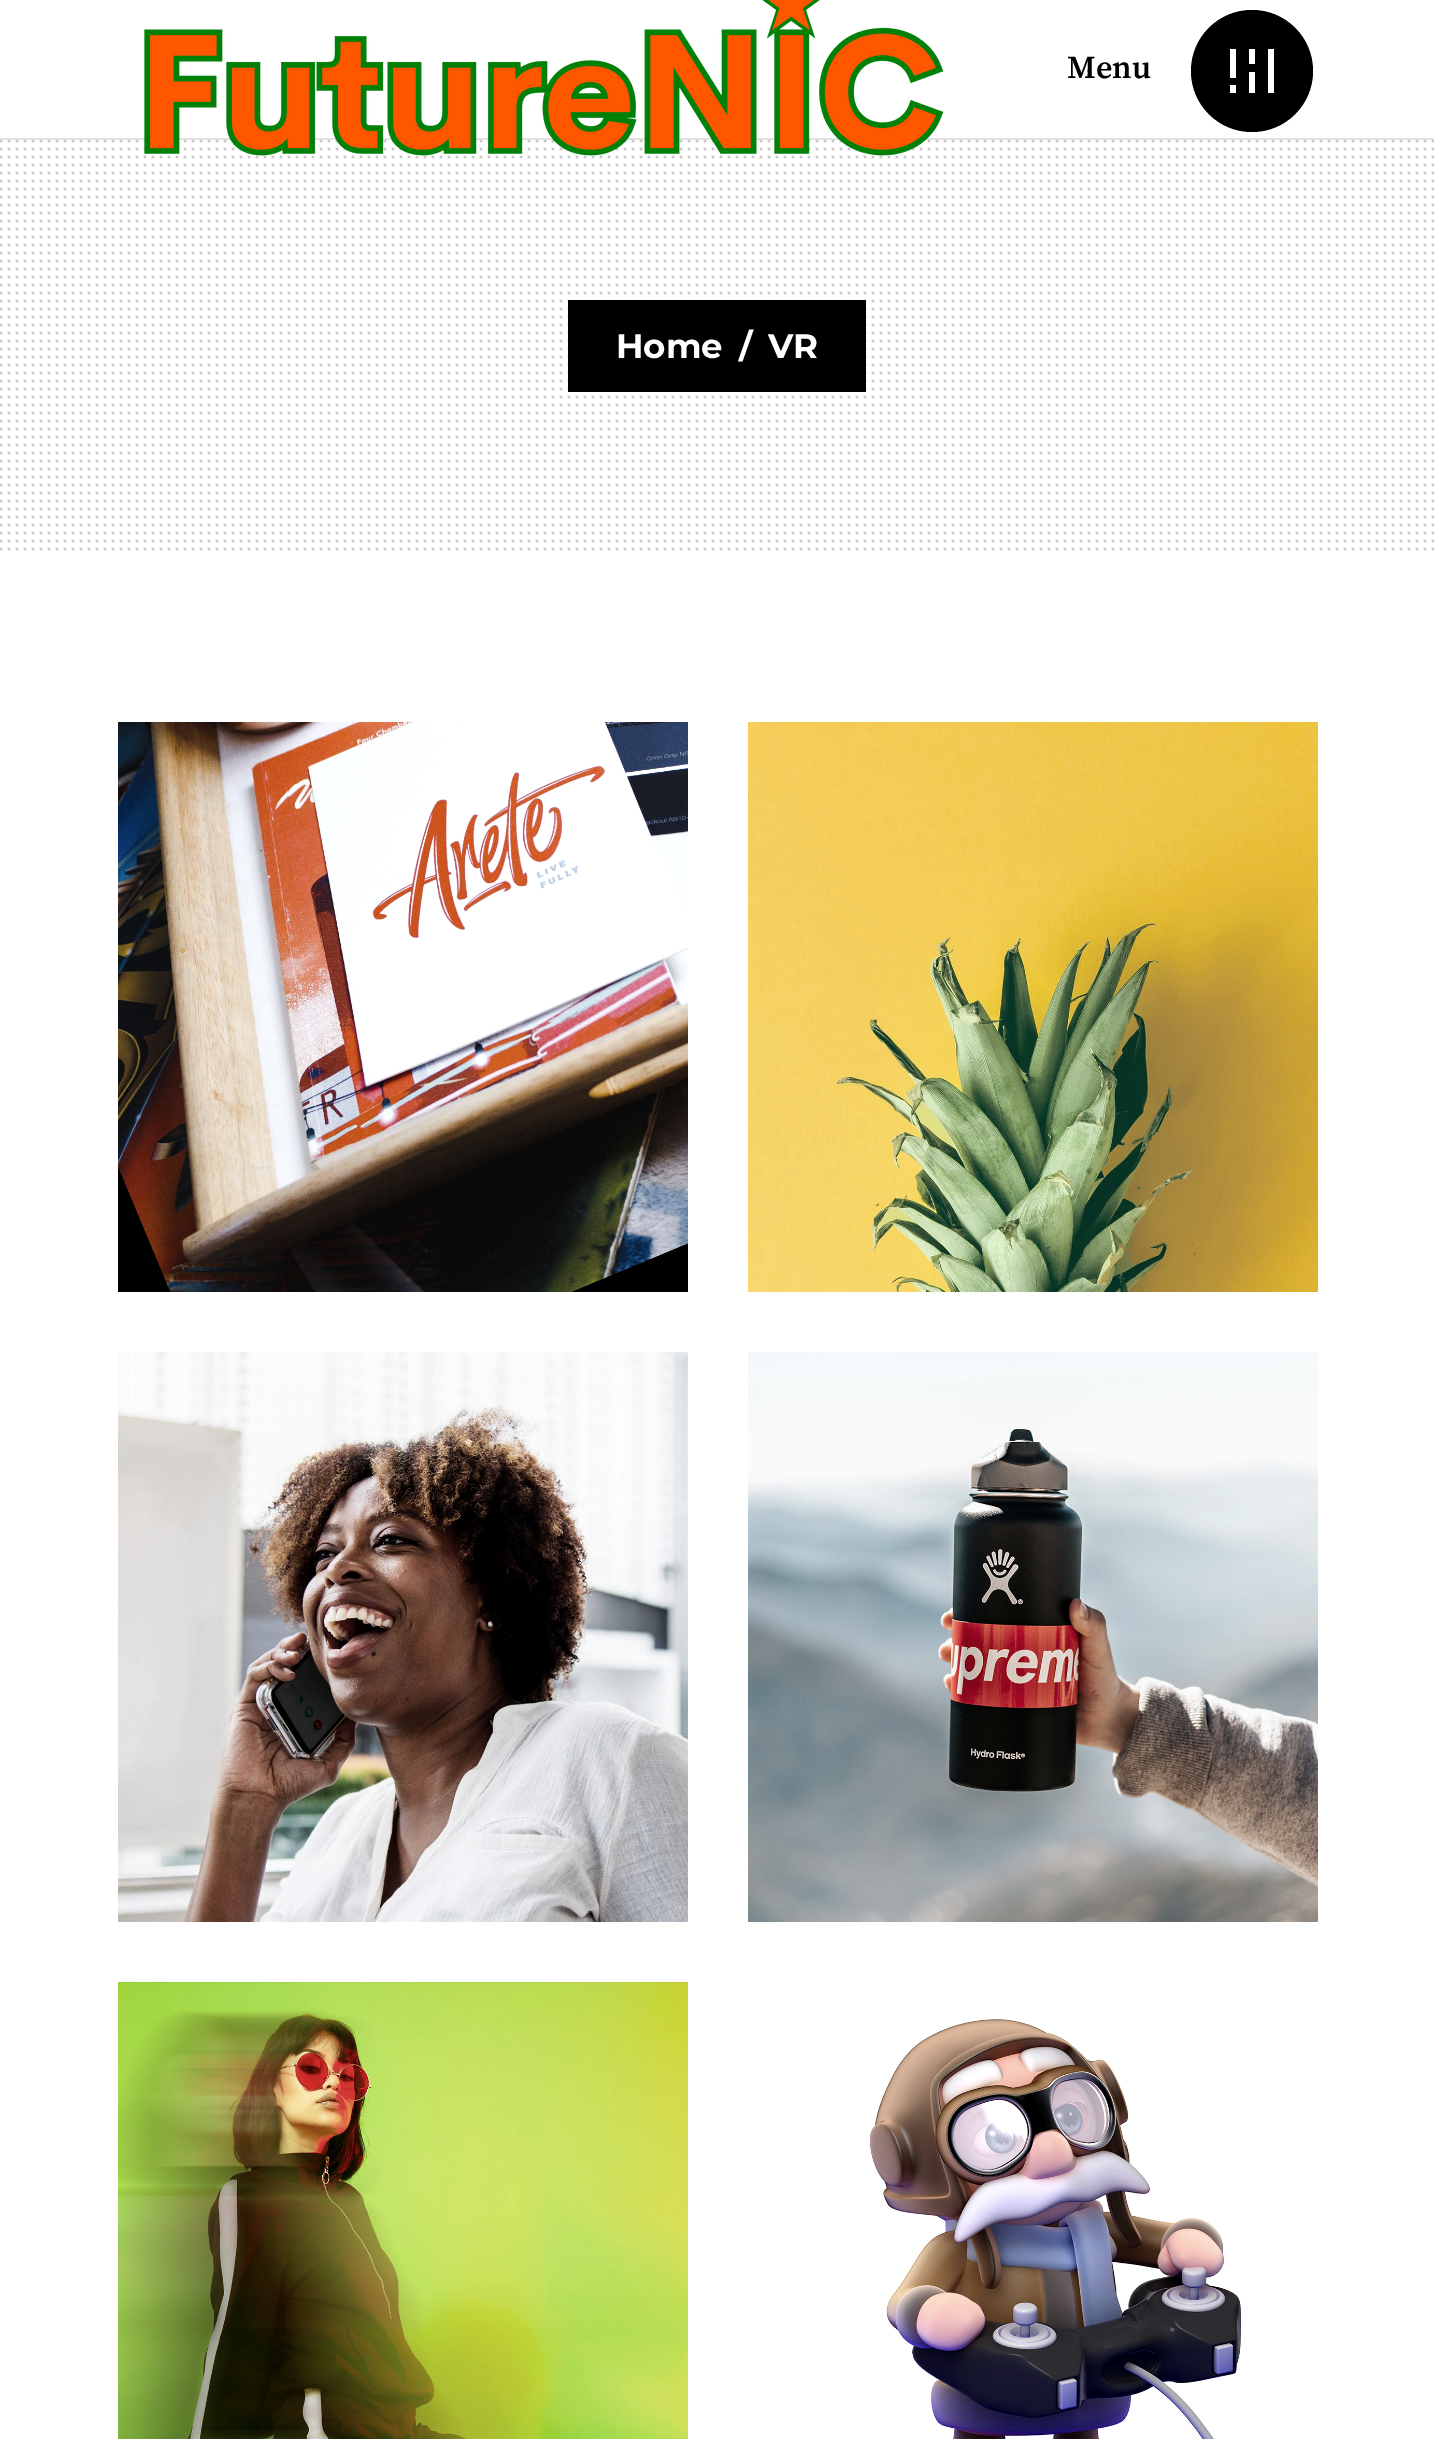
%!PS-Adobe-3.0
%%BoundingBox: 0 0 1434 2439
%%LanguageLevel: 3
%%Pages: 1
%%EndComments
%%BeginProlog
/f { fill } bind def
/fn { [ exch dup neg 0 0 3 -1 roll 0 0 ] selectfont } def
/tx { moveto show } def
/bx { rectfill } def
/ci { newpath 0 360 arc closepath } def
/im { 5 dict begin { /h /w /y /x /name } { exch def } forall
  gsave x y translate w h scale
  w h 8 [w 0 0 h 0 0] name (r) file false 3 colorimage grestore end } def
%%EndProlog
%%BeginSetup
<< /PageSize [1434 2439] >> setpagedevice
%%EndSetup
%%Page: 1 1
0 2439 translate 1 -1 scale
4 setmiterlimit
1 setgray
0 0 1434 2439 bx
0.882 setgray
0 138 1434 2 bx
(image1.raw) 0 140 1434 411 im
(image0.raw) 144 0 800 156 im
/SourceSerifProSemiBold-SemiBold 32 fn
0 setgray
(Menu) 1067 78 tx
1252 71 61 ci f
1 setgray
1230 49 6 29 bx
1230 85 6 8 bx
1249 49 6 15 bx
1249 72 6 21 bx
1268 49 6 44 bx
0 setgray
568 300 298 92 bx
/Montserrat-Bold 34 fn
1 setgray
(Home) 616 358 tx
(/) 739 358 tx
(VR) 768 358 tx
(image2.raw) 118 722 570 570 im
(image3.raw) 748 722 570 570 im
(image4.raw) 118 1352 570 570 im
(image5.raw) 748 1352 570 570 im
(image6.raw) 118 1982 570 457 im
(image7.raw) 870 2019 372 420 im
showpage
%%EOF
